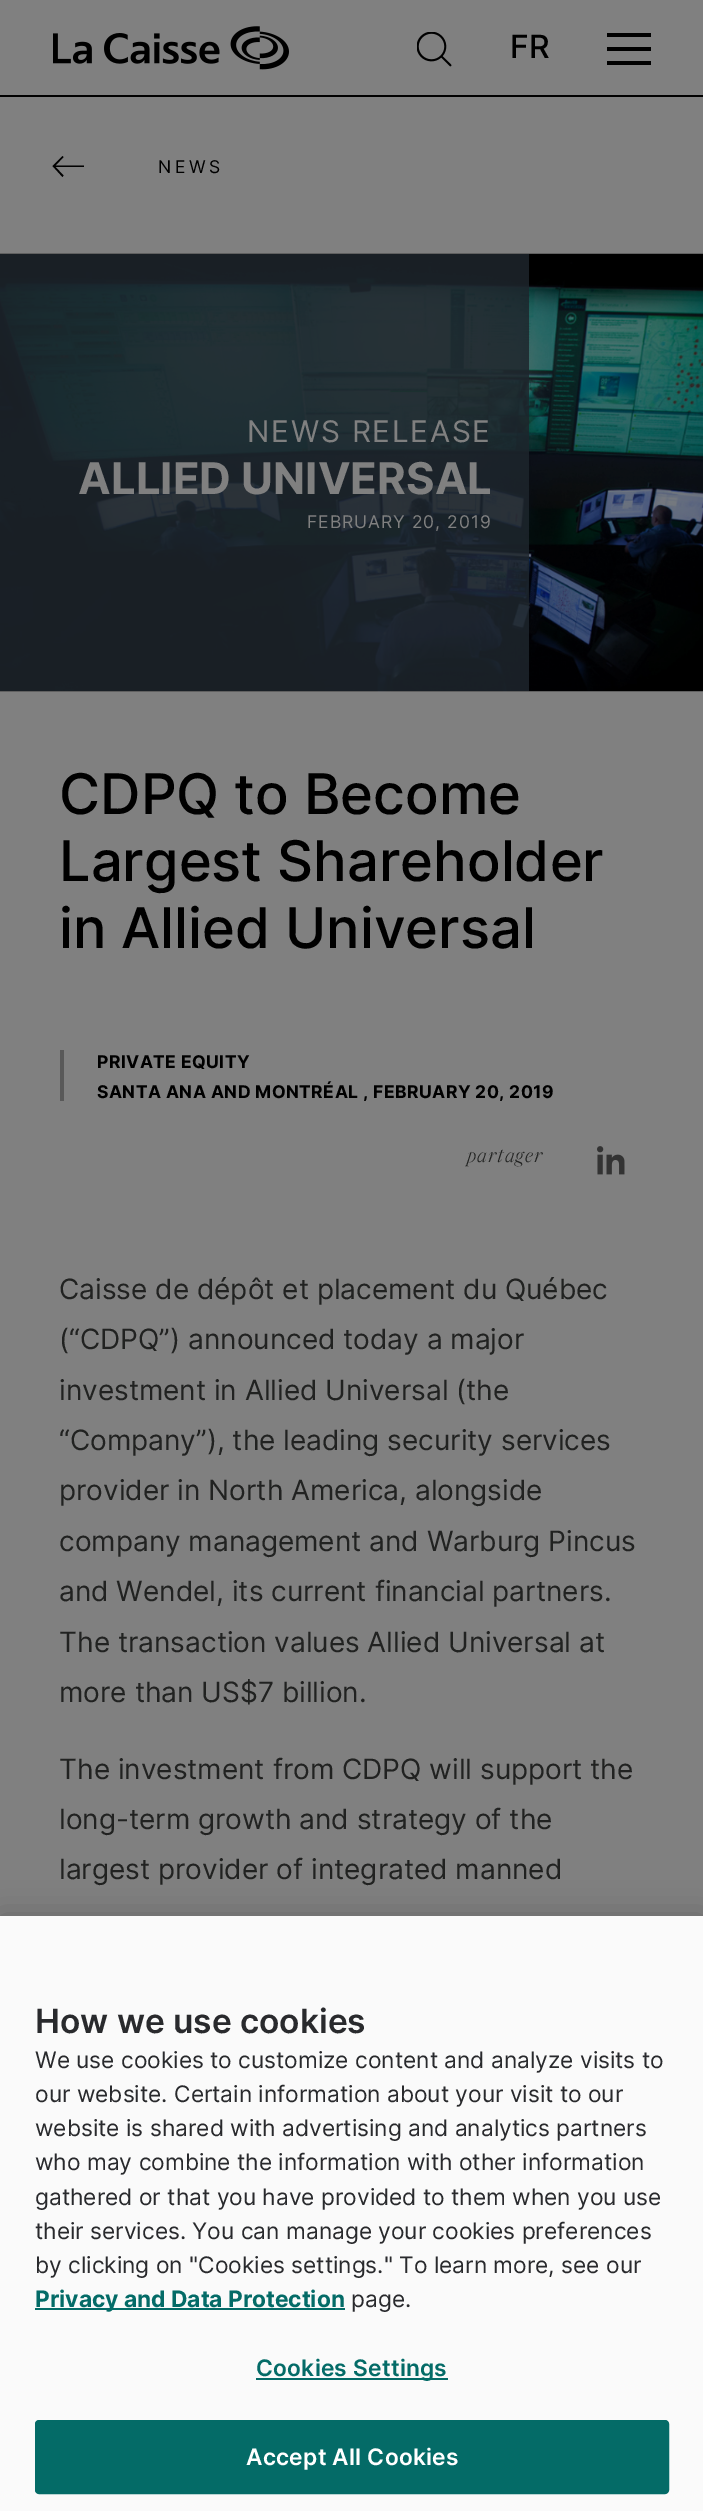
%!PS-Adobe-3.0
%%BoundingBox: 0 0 703 2511
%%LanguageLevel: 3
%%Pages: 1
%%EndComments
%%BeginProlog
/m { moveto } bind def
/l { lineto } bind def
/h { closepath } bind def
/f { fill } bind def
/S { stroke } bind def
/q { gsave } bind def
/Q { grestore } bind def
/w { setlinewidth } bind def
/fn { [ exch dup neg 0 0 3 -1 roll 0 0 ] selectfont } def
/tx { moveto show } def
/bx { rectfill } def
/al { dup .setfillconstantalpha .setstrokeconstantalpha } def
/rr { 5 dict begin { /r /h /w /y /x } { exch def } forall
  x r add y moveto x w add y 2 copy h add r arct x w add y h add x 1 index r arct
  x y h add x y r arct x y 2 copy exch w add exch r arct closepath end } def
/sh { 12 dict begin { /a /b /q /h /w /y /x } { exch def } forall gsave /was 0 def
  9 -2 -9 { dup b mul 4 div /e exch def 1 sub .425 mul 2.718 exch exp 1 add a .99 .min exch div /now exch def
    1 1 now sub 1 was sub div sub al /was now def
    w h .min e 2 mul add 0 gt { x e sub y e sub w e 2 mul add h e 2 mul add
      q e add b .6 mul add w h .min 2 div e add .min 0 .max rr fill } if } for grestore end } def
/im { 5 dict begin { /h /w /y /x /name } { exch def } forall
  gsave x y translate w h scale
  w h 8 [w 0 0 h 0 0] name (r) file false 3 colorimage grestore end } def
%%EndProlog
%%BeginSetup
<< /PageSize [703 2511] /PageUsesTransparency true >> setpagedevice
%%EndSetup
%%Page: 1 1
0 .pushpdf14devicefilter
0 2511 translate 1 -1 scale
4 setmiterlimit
0.502 setgray
0 0 703 2511 bx
0 setgray
0 95 703 2 bx
(image0.raw) 53 26 236 44 im
(image1.raw) 417 32 35 35 im
/Inter-Medium 32 fn
(FR) 510 58 tx
607 33 44 4 bx
607 47 44 4 bx
607 61 44 4 bx
0.004 setgray
62.5 177 m 63.5 175.5 l 55.5 167 l 84 167 l 84 165.5 l 55.5 165.5 l 63.5 157 l 62.5 156 l 52.5 166 l h f
/Inter-Regular 17.5 fn
0 setgray
158 173 m 3.5 0 (NEWS) ashow
(image2.raw) 0 253 703 439 im
0.85 al
0.114 0.145 0.173 setrgbcolor
0 254 529 437 bx
/Inter-Regular 29.75 fn
1 al
0.502 setgray
247 442 m 1.75 0 (NEWS RELEASE) ashow
/Inter-Bold 43.75 fn
(ALLIED UNIVERSAL) 78 494 tx
/Inter-Regular 17.5 fn
307 528 m 1 0 (FEBRUARY 20, 2019) ashow
/Inter-Medium 56 fn
0 setgray
(CDPQ to Become) 59 814 tx
(Largest Shareholder) 59 881 tx
(in Allied Universal) 59 948 tx
0.349 setgray
60 1050 4 51 bx
/Inter-Bold 17.5 fn
0 setgray
97 1068 m 0.45 0 (PRIVATE EQUITY) ashow
97 1098 m 0.45 0 (SANTA ANA AND MONTRÉAL , FEBRUARY 20, 2019) ashow
/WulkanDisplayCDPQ-Italic 19 fn
0.129 0.133 0.129 setrgbcolor
467 1162 m 1 0 (partager) ashow
(image3.raw) 597 1146 28 29 im
/Inter-Regular 28 fn
(Caisse de dépôt et placement du Québec) 59 1299 tx
(\(“CDPQ”\) announced today a major) 59 1349 tx
(investment in Allied Universal \(the) 59 1400 tx
(“Company”\), the leading security services) 59 1450 tx
(provider in North America, alongside) 59 1500 tx
(company management and Warburg Pincus) 59 1551 tx
(and Wendel, its current financial partners.) 59 1601 tx
(The transaction values Allied Universal at) 59 1652 tx
(more than US$7 billion.) 59 1702 tx
(The investment from CDPQ will support the) 59 1779 tx
(long-term growth and strategy of the) 59 1829 tx
(largest provider of integrated manned) 59 1879 tx
0 setgray
0 1916 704 595 0 16 0.2 sh
0.98 setgray
0 1916 703 595 bx
/Inter-SemiBold 33.5 fn
0.161 0.165 0.176 setrgbcolor
(How we use cookies) 35 2033 tx
/Inter-Regular 22.75 fn
(We use cookies to customize content and analyze visits to) 35 2068 tx
(our website. Certain information about your visit to our) 35 2102 tx
(website is shared with advertising and analytics partners) 35 2136 tx
(who may combine the information with other information) 35 2170 tx
(gathered or that you have provided to them when you use) 35 2205 tx
(their services. You can manage your cookies preferences) 35 2239 tx
(by clicking on "Cookies settings." To learn more, see our) 35 2273 tx
0.016 0.42 0.404 setrgbcolor
35 2308 310 2 bx
/Inter-Bold 22.75 fn
(Privacy and Data Protection) 35 2307 tx
/Inter-Regular 22.75 fn
0.161 0.165 0.176 setrgbcolor
(page.) 351 2307 tx
0.016 0.42 0.404 setrgbcolor
256 2378 192 2 bx
/Inter-SemiBold 22.75 fn
256 2376 m 0.25 0 (Cookies Settings) ashow
36 2421 632 72 3 rr q f Q
2 w
S
1 setgray
246 2465 m 0.25 0 (Accept All Cookies) ashow
.poppdf14devicefilter showpage
%%EOF
